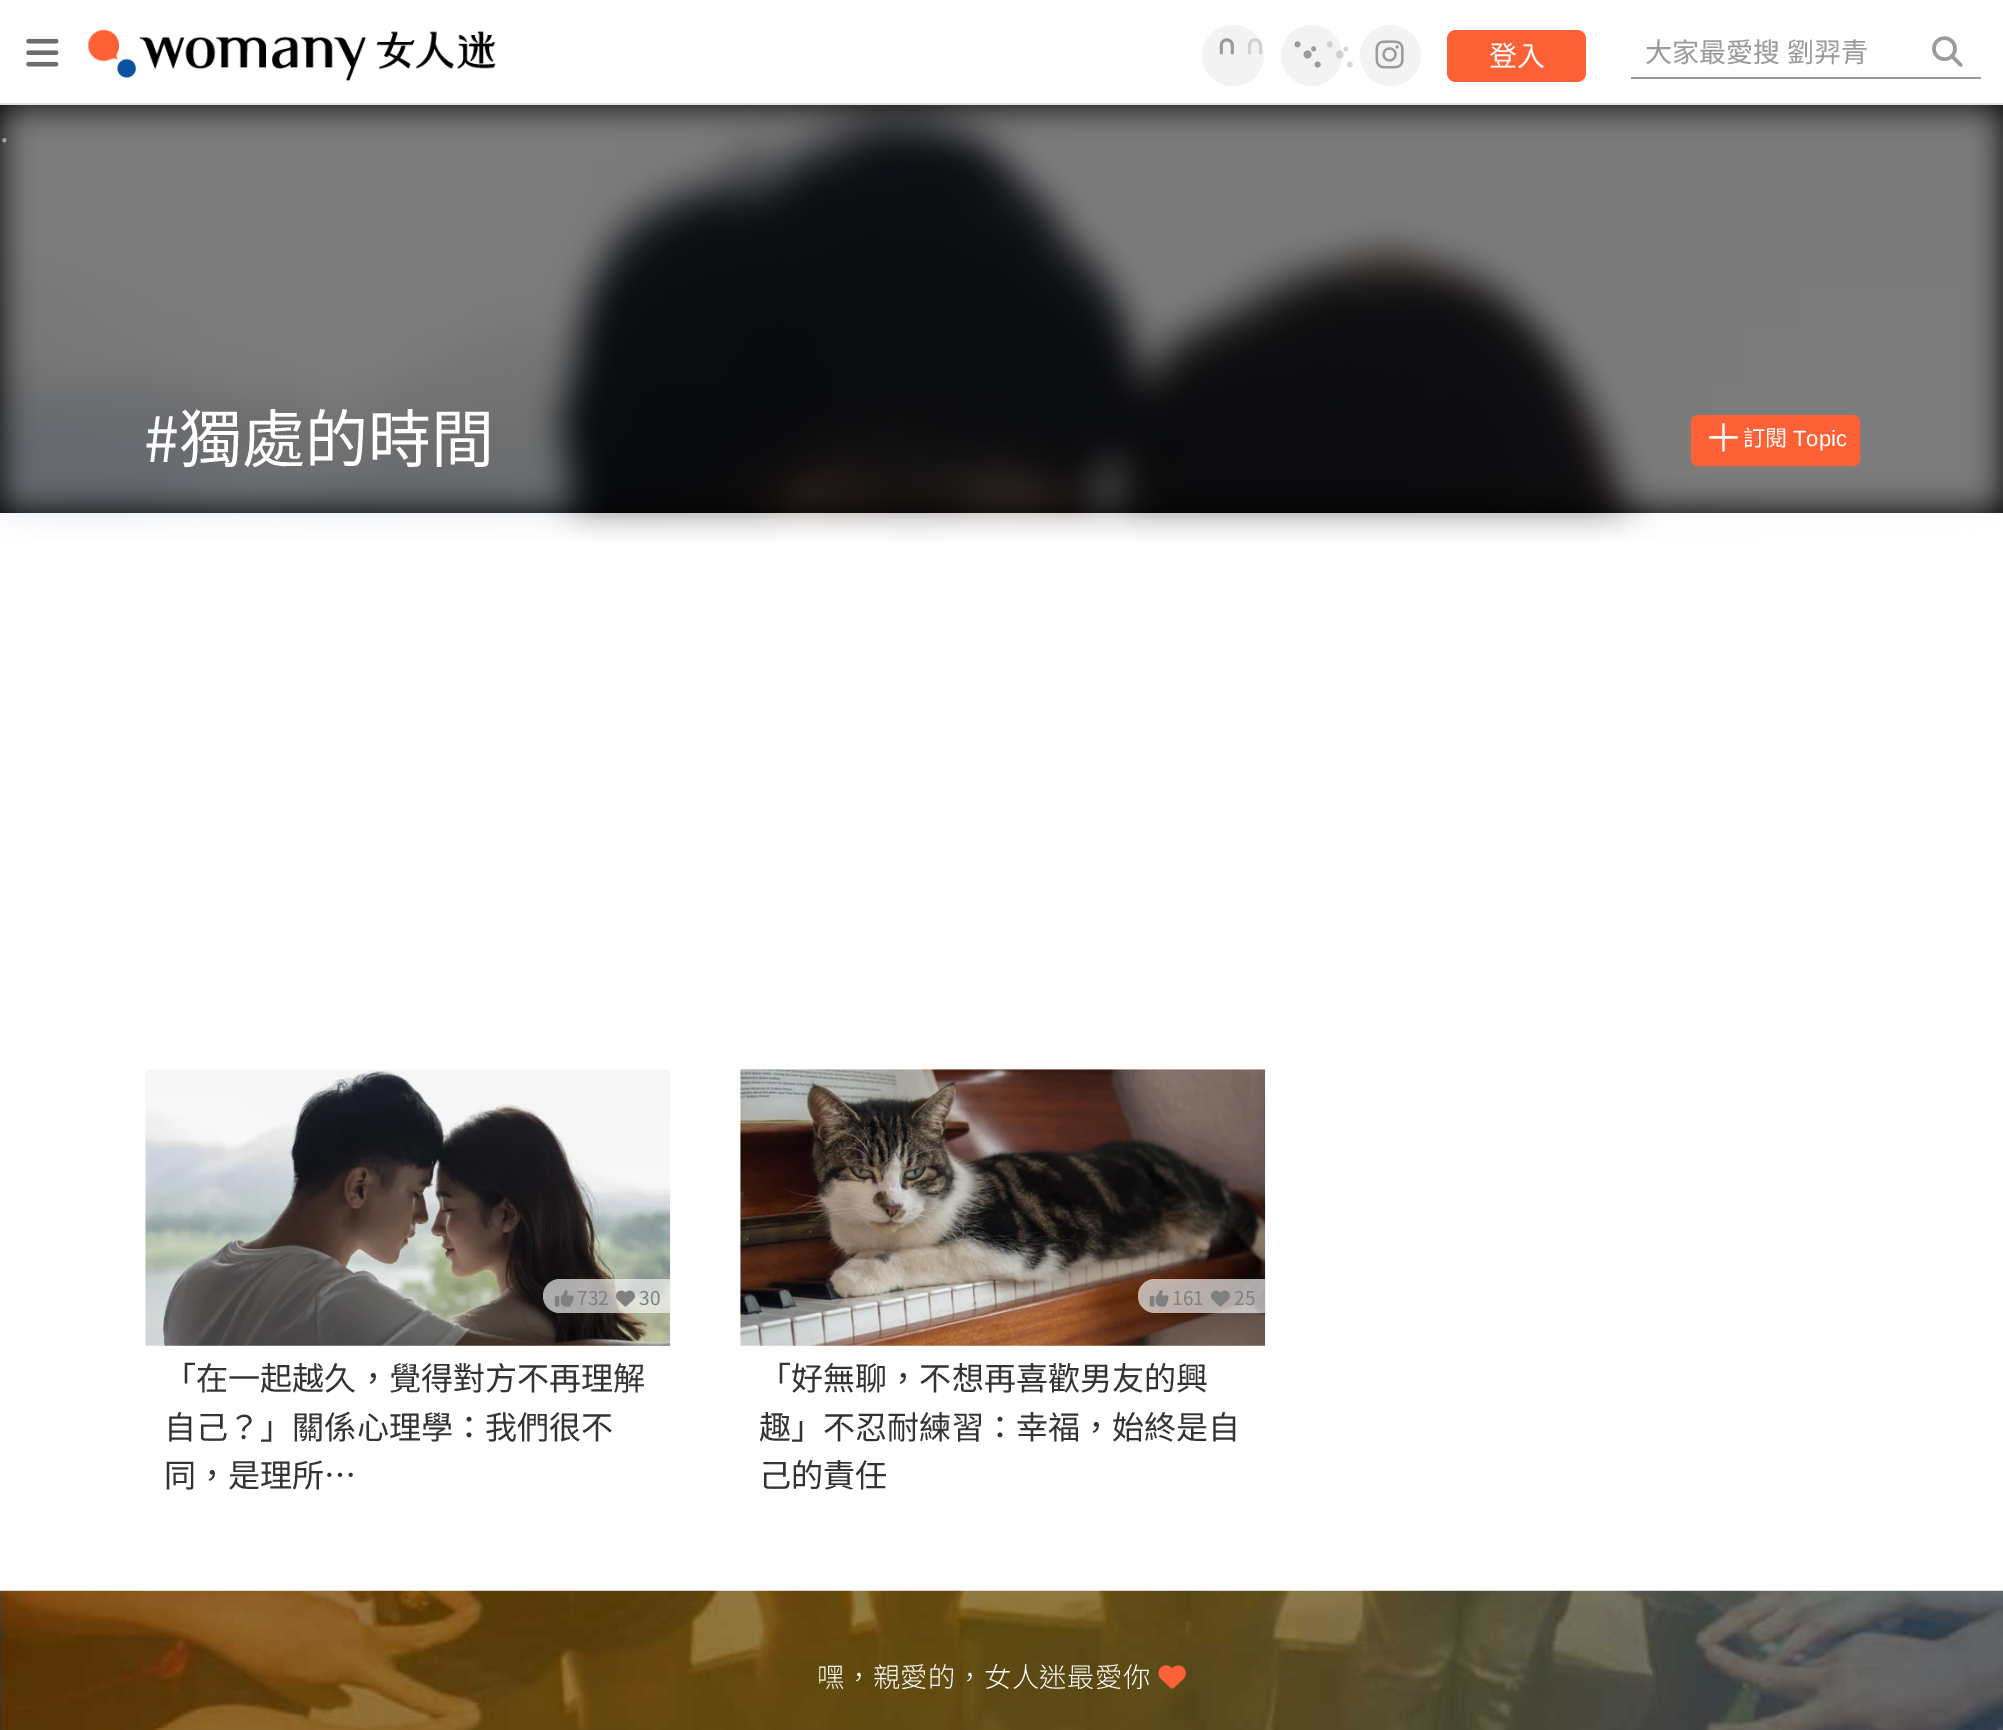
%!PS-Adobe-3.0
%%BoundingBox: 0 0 2003 1730
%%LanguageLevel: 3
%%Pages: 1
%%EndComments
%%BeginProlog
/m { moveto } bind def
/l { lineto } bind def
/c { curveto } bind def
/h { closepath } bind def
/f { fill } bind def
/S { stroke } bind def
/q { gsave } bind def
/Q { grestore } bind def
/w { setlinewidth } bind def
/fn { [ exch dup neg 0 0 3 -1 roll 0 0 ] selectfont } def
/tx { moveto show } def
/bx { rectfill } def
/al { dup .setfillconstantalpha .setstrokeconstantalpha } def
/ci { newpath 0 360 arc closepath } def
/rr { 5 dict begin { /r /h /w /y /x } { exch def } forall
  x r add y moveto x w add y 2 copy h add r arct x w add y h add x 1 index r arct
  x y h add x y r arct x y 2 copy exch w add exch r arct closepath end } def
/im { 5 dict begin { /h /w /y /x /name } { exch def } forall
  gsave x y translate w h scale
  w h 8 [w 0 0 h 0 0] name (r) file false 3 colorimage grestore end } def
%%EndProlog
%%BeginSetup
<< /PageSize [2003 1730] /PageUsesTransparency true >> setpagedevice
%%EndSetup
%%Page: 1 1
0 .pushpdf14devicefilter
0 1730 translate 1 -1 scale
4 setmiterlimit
1 setgray
0 0 2003 1730 bx
0.89 setgray
0 103 2003 2 bx
(image0.raw) 26 38 33 29 im
(image1.raw) 88 29 408 52 im
0.953 setgray
1203 26 60 59 29.5 rr q f Q
2 w
S
(image2.raw) 1219 38 15 17 im
(image3.raw) 1219 38 43 17 im
1311.5 55.5 29.5 ci q f Q
S
(image4.raw) 1294 41 27 27 im
(image5.raw) 1294 41 59 27 im
1390.5 55.5 29.5 ci q f Q
S
(image6.raw) 1375 40 29 29 im
1 0.38 0.212 setrgbcolor
1447 30 139 52 9 rr f
/NotoSansTC-Regular 28 fn
1 setgray
(登入) 1489 66 tx
0.608 setgray
1631 77 350 2 bx
/NotoSansCJKTC-Regular 27 fn
0.6 setgray
1645 62 m 1 0 32 (大家最愛搜 劉羿青) widthshow
(image7.raw) 1932 36 31 31 im
0 setgray
0 105 2003 408 bx
(image8.raw) 0 105 2003 436 im
/NotoSansTC-Regular 32 fn
0.643 setgray
(.) 0 142 tx
/NotoSansTC-Regular 63 fn
1 setgray
(#獨處的時間) 144 462 tx
1 0.38 0.212 setrgbcolor
1692 416 167 49 6 rr q f Q
S
/NotoSansCJKTC-Regular 39 fn
1 setgray
(＋) 1704 452 tx
/NotoSansCJKTC-Regular 22 fn
(訂閱) 1743 446 tx
/LiberationSans-Regular 22 fn
(Topic) 1793 446 tx
(image9.raw) 145 1069 526 277 im
0.67 al
0.969 setgray
560 1279 m 670 1279 l 670 1313 l 560 1313 l 550.5 1313 543 1305.5 543 1296 c 543 1286.5 550.5 1279 560 1279 c h f
1 al
(image10.raw) 554 1290 20 17 im
/NotoSansTC-Regular 19 fn
0.502 setgray
(732) 577 1305 tx
(image11.raw) 616 1290 19 17 im
(30) 639 1305 tx
/NotoSansTC-Regular 32.1 fn
0.2 setgray
(「在一起越久，覺得對方不再理解) 164 1390 tx
(自己？」關係心理學：我們很不) 164 1439 tx
(同，是理所…) 164 1487 tx
(image12.raw) 740 1069 526 277 im
0.67 al
0.969 setgray
1155 1279 m 1265 1279 l 1265 1313 l 1155 1313 l 1145.5 1313 1138 1305.5 1138 1296 c 1138 1286.5 1145.5 1279 1155 1279 c h f
1 al
(image13.raw) 1149 1290 20 17 im
/NotoSansTC-Regular 19 fn
0.502 setgray
(161) 1172 1305 tx
(image14.raw) 1211 1290 19 17 im
(25) 1234 1305 tx
/NotoSansTC-Regular 32.1 fn
0.2 setgray
(「好無聊，不想再喜歡男友的興) 759 1390 tx
(趣」不忍耐練習：幸福，始終是自) 759 1439 tx
(己的責任) 759 1487 tx
(image15.raw) 0 1590 2003 140 im
/NotoSansTC-Light 27.3 fn
1 setgray
817 1687 m 0.5 0 (嘿，親愛的，女人迷最愛你) ashow
(image16.raw) 1158 1665 28 24 im
.poppdf14devicefilter showpage
%%EOF
